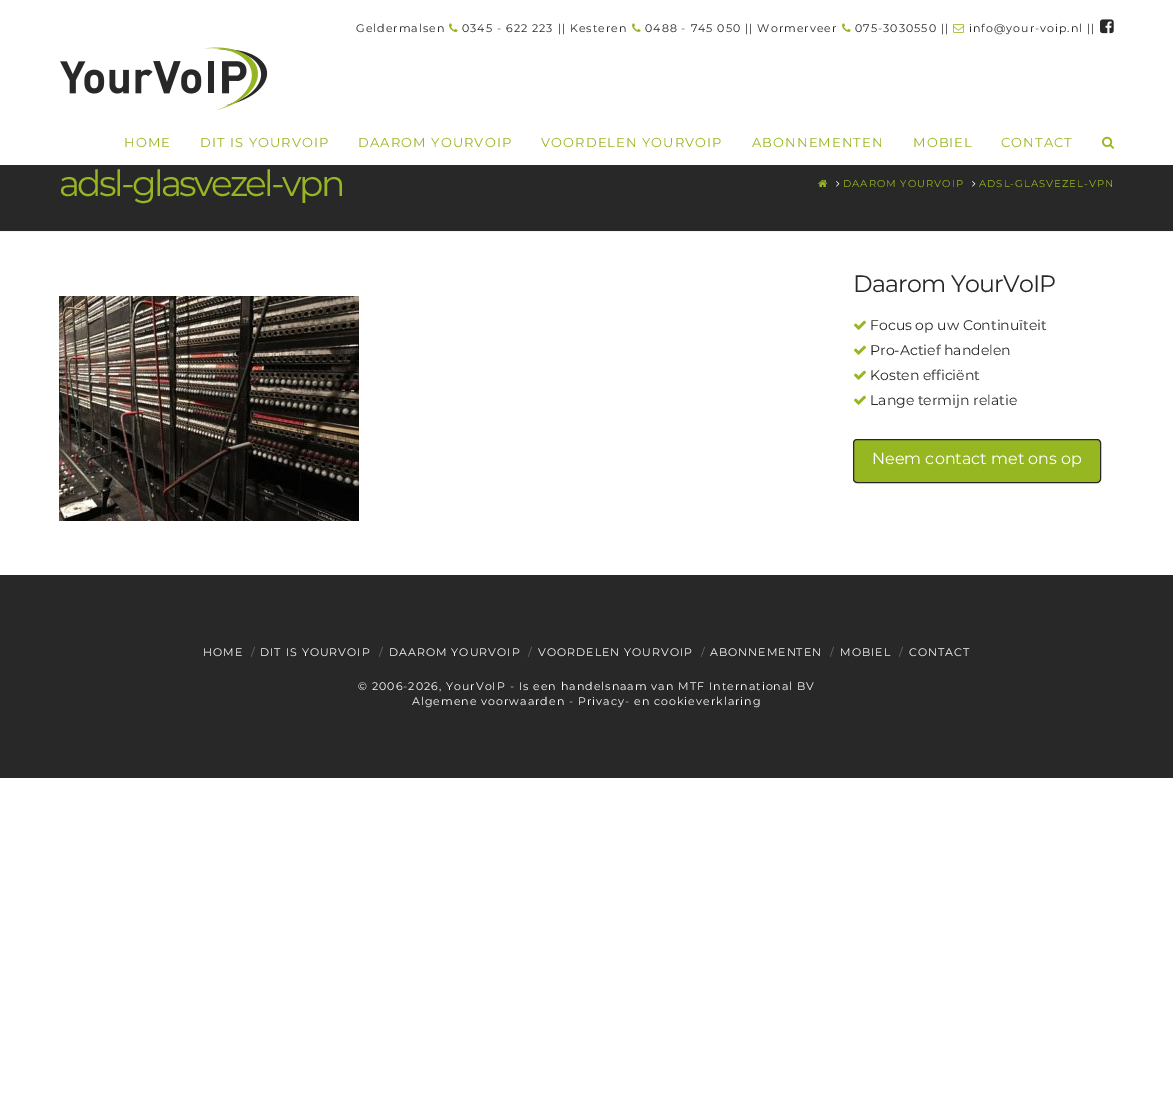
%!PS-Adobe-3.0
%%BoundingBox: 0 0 1173 1106
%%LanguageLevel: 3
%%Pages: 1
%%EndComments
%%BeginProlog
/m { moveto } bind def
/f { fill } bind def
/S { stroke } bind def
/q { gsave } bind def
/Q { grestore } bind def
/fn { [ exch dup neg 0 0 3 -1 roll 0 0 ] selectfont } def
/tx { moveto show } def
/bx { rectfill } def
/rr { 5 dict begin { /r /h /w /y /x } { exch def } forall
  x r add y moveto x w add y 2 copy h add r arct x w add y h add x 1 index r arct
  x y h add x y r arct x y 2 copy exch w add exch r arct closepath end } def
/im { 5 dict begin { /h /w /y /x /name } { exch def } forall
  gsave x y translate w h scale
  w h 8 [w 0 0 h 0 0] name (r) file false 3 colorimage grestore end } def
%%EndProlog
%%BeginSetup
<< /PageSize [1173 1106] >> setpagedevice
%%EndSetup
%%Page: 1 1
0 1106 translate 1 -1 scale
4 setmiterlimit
1 setgray
0 0 1173 1106 bx
/Montserrat-Regular 11 fn
0.157 setgray
356 32 m 1 0 (Geldermalsen) ashow
(image0.raw) 449 23 9 9 im
462 32 m 1 0 (0345 - 622 223 || Kesteren) ashow
(image0.raw) 632 23 9 9 im
645 32 m 1 0 (0488 - 745 050 || Wormerveer) ashow
(image0.raw) 842 23 9 9 im
855 32 m 1 0 (075-3030550 ||) ashow
(image1.raw) 953 24 11 9 im
969 32 m 1 0 (info@your-voip.nl ||) ashow
(image2.raw) 1100 19 14 15 im
(image3.raw) 60 47 208 64 im
/Montserrat-Regular 13 fn
0.588 0.718 0.129 setrgbcolor
124 147 m 1.1 0 (HOME) ashow
200 147 m 1.1 0 (DIT IS YOURVOIP) ashow
358 147 m 1.1 0 (DAAROM YOURVOIP) ashow
541 147 m 1.1 0 (VOORDELEN YOURVOIP) ashow
752 147 m 1.1 0 (ABONNEMENTEN) ashow
913 147 m 1.1 0 (MOBIEL) ashow
1001 147 m 1.1 0 (CONTACT) ashow
(image4.raw) 1102 136 12 13 im
0.157 setgray
0 165 1173 66 bx
0.949 setgray
0 231 1173 1 bx
/Montserrat-Regular 36 fn
0.588 0.718 0.129 setrgbcolor
59 196 m -2.75 0 (adsl-glasvezel-vpn) ashow
(image5.raw) 818 179 10 8 im
(image6.raw) 836 181 4 6 im
/Montserrat-Regular 10 fn
843 187 m 1 0 (DAAROM YOURVOIP) ashow
(image6.raw) 972 181 4 6 im
979 187 m 1 0 (ADSL-GLASVEZEL-VPN) ashow
(image7.raw) 59 296 300 225 im
/Montserrat-Regular 23.75 fn
0.157 setgray
853 292 m -0.8 0 (Daarom YourVoIP) ashow
(image8.raw) 854 320 12 10 im
/Montserrat-Regular 14 fn
(Focus op uw Continuïteit) 870 330 tx
(image8.raw) 854 345 12 10 im
(Pro-Actief handelen) 870 355 tx
(image8.raw) 854 370 12 10 im
(Kosten efficiënt) 870 380 tx
(image8.raw) 854 395 12 10 im
(Lange termijn relatie) 870 405 tx
0.588 0.718 0.129 setrgbcolor
853.5 439.5 247 43 3.5 rr q f Q
0.157 setgray
S
/Montserrat-Regular 16 fn
1 setgray
(Neem contact met ons op) 872 464 tx
0.157 setgray
0 575 1173 203 bx
/Montserrat-Regular 11 fn
1 setgray
203 656 m 1 0 (HOME) ashow
0.451 setgray
(/) 251 656 tx
1 setgray
260 656 m 1 0 (DIT IS YOURVOIP) ashow
0.451 setgray
(/) 379 656 tx
1 setgray
389 656 m 1 0 (DAAROM YOURVOIP) ashow
0.451 setgray
(/) 528 656 tx
1 setgray
538 656 m 1 0 (VOORDELEN YOURVOIP) ashow
0.451 setgray
(/) 701 656 tx
1 setgray
710 656 m 1 0 (ABONNEMENTEN) ashow
0.451 setgray
(/) 830 656 tx
1 setgray
840 656 m 1 0 (MOBIEL) ashow
0.451 setgray
(/) 899 656 tx
1 setgray
909 656 m 1 0 (CONTACT) ashow
358 690 m 1 0 (© 2006-2026, YourVoIP - Is een handelsnaam van MTF International BV) ashow
412 705 m 1 0 (Algemene voorwaarden - Privacy- en cookieverklaring) ashow
showpage
%%EOF
